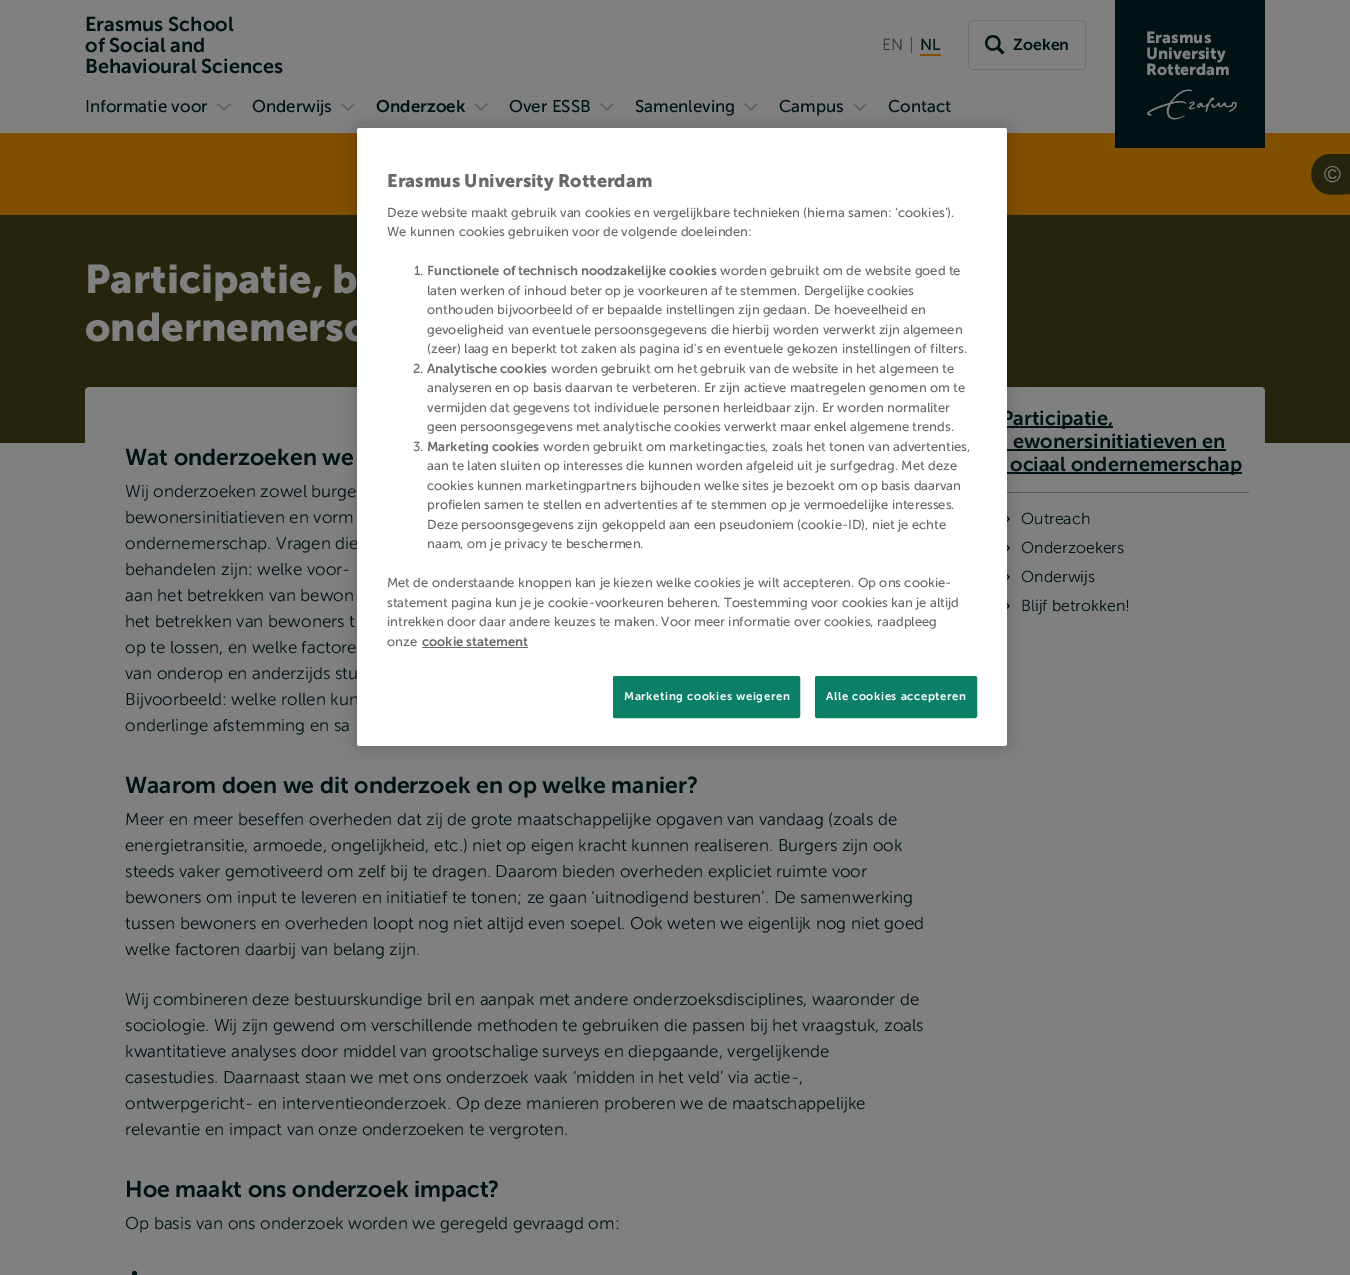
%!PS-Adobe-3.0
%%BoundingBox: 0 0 1350 1275
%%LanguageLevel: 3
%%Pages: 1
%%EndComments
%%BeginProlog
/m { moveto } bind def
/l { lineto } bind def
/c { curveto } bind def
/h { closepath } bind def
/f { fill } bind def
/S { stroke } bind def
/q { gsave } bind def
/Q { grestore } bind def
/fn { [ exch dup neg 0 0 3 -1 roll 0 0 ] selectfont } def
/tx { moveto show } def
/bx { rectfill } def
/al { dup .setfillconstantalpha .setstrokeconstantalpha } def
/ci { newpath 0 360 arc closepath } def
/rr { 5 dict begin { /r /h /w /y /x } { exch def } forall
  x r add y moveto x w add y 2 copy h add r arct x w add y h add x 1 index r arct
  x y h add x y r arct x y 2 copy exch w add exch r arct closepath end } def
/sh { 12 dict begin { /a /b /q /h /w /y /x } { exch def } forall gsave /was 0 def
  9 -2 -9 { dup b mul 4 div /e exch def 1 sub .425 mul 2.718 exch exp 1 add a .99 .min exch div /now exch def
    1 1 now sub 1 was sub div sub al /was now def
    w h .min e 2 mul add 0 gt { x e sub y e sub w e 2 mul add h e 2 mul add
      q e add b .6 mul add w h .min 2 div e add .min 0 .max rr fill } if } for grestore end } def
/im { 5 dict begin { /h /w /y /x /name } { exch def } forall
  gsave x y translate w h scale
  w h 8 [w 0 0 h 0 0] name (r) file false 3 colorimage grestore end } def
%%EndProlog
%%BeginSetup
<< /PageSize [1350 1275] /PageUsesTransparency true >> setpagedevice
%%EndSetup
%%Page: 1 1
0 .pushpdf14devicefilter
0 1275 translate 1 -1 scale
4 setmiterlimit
0.502 setgray
0 0 1350 1275 bx
/MuseoSans-SemiBold 20 fn
0 0.071 0.078 setrgbcolor
(Erasmus School) 85 31 tx
(of Social and) 85 52 tx
(Behavioural Sciences) 85 73 tx
0.263 setgray
911 37 1 16 bx
/MuseoSans-Light 16 fn
0.2 setgray
(EN) 882 50 tx
/MuseoSans-Regular 16 fn
0 0.071 0.078 setrgbcolor
(NL) 920 50 tx
0.502 0.31 0 setrgbcolor
920 54 21 2 bx
0.447 0.427 0.424 setrgbcolor
968.5 20.5 117 49 4.5 rr S
0.502 setgray
969 21 116 48 4 rr f
(image0.raw) 985 35 20 20 im
/MuseoSans-SemiBold 16 fn
0 0.071 0.078 setrgbcolor
(Zoeken) 1013 50 tx
0.502 0.31 0 setrgbcolor
0 133 1350 82 bx
0 0.071 0.078 setrgbcolor
1115 0 150 148 bx
/MuseoSans-Bold 16 fn
0.502 setgray
(Erasmus) 1146 43 tx
(University) 1146 59 tx
(Rotterdam) 1146 75 tx
(image1.raw) 1147 89 90 31 im
/MuseoSans-Regular 17 fn
0 0.071 0.078 setrgbcolor
(Informatie voor) 85 112 tx
(image2.raw) 217 103 14 8 im
(Onderwijs) 252 112 tx
(image2.raw) 341 103 14 8 im
/MuseoSans-SemiBold 17 fn
(Onderzoek) 376 112 tx
(image2.raw) 474 103 14 8 im
/MuseoSans-Regular 17 fn
(Over ESSB) 509 112 tx
(image2.raw) 600 103 14 8 im
(Samenleving) 635 112 tx
(image2.raw) 744 103 14 8 im
(Campus) 779 112 tx
(image2.raw) 853 103 14 8 im
(Contact) 888 112 tx
0.153 0.141 0.055 setrgbcolor
0 215 1350 228 bx
1331 154 m 1350 154 l 1350 194 l 1343 194 1330 196 1323 193 c 1304 184 1309 154 1331 154 c h f
/LiberationSans-Regular 23 fn
0.502 setgray
(©) 1324 182 tx
/MuseoSans-Bold 40 fn
(Participatie, b) 85 293 tx
(ondernemersc) 85 341 tx
89 387 m 961 387 l 963 387 965 389 965 391 c 965 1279 l 85 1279 l 85 391 l 85 389 87 387 89 387 c h f
/MuseoSans-SemiBold 23 fn
0 0.071 0.078 setrgbcolor
(Wat onderzoeken we) 125 465 tx
/MuseoSans-Light 17 fn
(Wij onderzoeken zowel burge) 125 497 tx
(bewonersinitiatieven en vorm) 125 523 tx
(ondernemerschap. Vragen die) 125 549 tx
(behandelen zijn: welke voor-) 125 575 tx
(aan het betrekken van bewon) 125 601 tx
(het betrekken van bewoners t) 125 627 tx
(op te lossen, en welke factore) 125 653 tx
(van onderop en anderzijds stu) 125 679 tx
(Bijvoorbeeld: welke rollen kun) 125 705 tx
(onderlinge afstemming en sa) 125 731 tx
/MuseoSans-SemiBold 23 fn
(Waarom doen we dit onderzoek en op welke manier?) 125 793 tx
/MuseoSans-Light 17 fn
(Meer en meer beseffen overheden dat zij de grote maatschappelijke opgaven van vandaag \(zoals de) 125 825 tx
(energietransitie, armoede, ongelijkheid, etc.\) niet op eigen kracht kunnen realiseren. Burgers zijn ook) 125 851 tx
(steeds vaker gemotiveerd om zelf bij te dragen. Daarom bieden overheden expliciet ruimte voor) 125 877 tx
(bewoners om input te leveren en initiatief te tonen; ze gaan ‘uitnodigend besturen’. De samenwerking) 125 903 tx
(tussen bewoners en overheden loopt nog niet altijd even soepel. Ook weten we eigenlijk nog niet goed) 125 929 tx
(welke factoren daarbij van belang zijn.) 125 955 tx
(Wij combineren deze bestuurskundige bril en aanpak met andere onderzoeksdisciplines, waaronder de) 125 1005 tx
(sociologie. Wij zijn gewend om verschillende methoden te gebruiken die passen bij het vraagstuk, zoals) 125 1031 tx
(kwantitatieve analyses door middel van grootschalige surveys en diepgaande, vergelijkende) 125 1057 tx
(casestudies. Daarnaast staan we met ons onderzoek vaak ‘midden in het veld’ via actie-,) 125 1083 tx
(ontwerpgericht- en interventieonderzoek. Op deze manieren proberen we de maatschappelijke) 125 1109 tx
(relevantie en impact van onze onderzoeken te vergroten.) 125 1135 tx
/MuseoSans-SemiBold 23 fn
(Hoe maakt ons onderzoek impact?) 125 1197 tx
/MuseoSans-Light 17 fn
(Op basis van ons onderzoek worden we geregeld gevraagd om:) 125 1229 tx
134.5 1273.5 2.5 ci f
0.502 setgray
989 387 m 1261 387 l 1263 387 1265 389 1265 391 c 1265 493 l 985 493 l 985 391 l 985 389 987 387 989 387 c h f
0.353 setgray
1001 492 248 1 bx
0 0.071 0.078 setrgbcolor
1001 426 112 2 bx
/MuseoSans-SemiBold 20 fn
(Participatie,) 1001 425 tx
(ewonersinitiatieven en) 1013 448 tx
1001 449 225 2 bx
1001 472 241 2 bx
(ociaal ondernemerschap) 1010 471 tx
(image3.raw) 1007 516 3 6 im
/MuseoSans-Light 16 fn
(Outreach) 1021 524 tx
(image3.raw) 1007 545 3 6 im
(Onderzoekers) 1021 553 tx
(image3.raw) 1007 574 3 6 im
(Onderwijs) 1021 582 tx
(image3.raw) 1007 603 3 6 im
(Blijf betrokken!) 1021 611 tx
0 setgray
357 128 650 618 2.5 9 0.2 sh
1 setgray
357 128 650 618 2.5 rr f
/MuseoSans-Bold 18 fn
0.412 setgray
(Erasmus University Rotterdam) 387 187 tx
/MuseoSans-Regular 13 fn
(Deze website maakt gebruik van cookies en vergelijkbare technieken \(hierna samen: ‘cookies’\).) 387 217 tx
(We kunnen cookies gebruiken voor de volgende doeleinden:) 387 236 tx
(1.) 414 275 tx
/MuseoSans-SemiBold 13 fn
(Functionele of technisch noodzakelijke cookies) 427 275 tx
/MuseoSans-Regular 13 fn
(worden gebruikt om de website goed te) 720 275 tx
(laten werken of inhoud beter op je voorkeuren af te stemmen. Dergelijke cookies) 427 295 tx
(onthouden bijvoorbeeld of er bepaalde instellingen zijn gedaan. De hoeveelheid en) 427 314 tx
(gevoeligheid van eventuele persoonsgegevens die hierbij worden verwerkt zijn algemeen) 427 334 tx
(\(zeer\) laag en beperkt tot zaken als pagina id's en eventuele gekozen instellingen of filters.) 427 353 tx
(2.) 413 373 tx
/MuseoSans-SemiBold 13 fn
(Analytische cookies) 427 373 tx
/MuseoSans-Regular 13 fn
(worden gebruikt om het gebruik van de website in het algemeen te) 551 373 tx
(analyseren en op basis daarvan te verbeteren. Er zijn actieve maatregelen genomen om te) 427 392 tx
(vermijden dat gegevens tot individuele personen herleidbaar zijn. Er worden normaliter) 427 412 tx
(geen persoonsgegevens met analytische cookies verwerkt maar enkel algemene trends.) 427 431 tx
(3.) 413 451 tx
/MuseoSans-SemiBold 13 fn
(Marketing cookies) 427 451 tx
/MuseoSans-Regular 13 fn
(worden gebruikt om marketingacties, zoals het tonen van advertenties,) 543 451 tx
(aan te laten sluiten op interesses die kunnen worden afgeleid uit je surfgedrag. Met deze) 427 470 tx
(cookies kunnen marketingpartners bijhouden welke sites je bezoekt om op basis daarvan) 427 490 tx
(profielen samen te stellen en advertenties af te stemmen op je vermoedelijke interesses.) 427 509 tx
(Deze persoonsgegevens zijn gekoppeld aan een pseudoniem \(cookie-ID\), niet je echte) 427 529 tx
(naam, om je privacy te beschermen.) 427 548 tx
(Met de onderstaande knoppen kan je kiezen welke cookies je wilt accepteren. Op ons cookie-) 387 587 tx
(statement pagina kun je je cookie-voorkeuren beheren. Toestemming voor cookies kan je altijd) 387 607 tx
(intrekken door daar andere keuzes te maken. Voor meer informatie over cookies, raadpleeg) 387 626 tx
(onze) 387 646 tx
/MuseoSans-SemiBold 13 fn
(cookie statement) 422 646 tx
422 647 106 1 bx
0.047 0.502 0.4 setrgbcolor
613.5 676.5 186 41 1.5 rr q f Q
S
/MuseoSans-SemiBold 11.4 fn
1 setgray
624 700 m 0.6 0 (Marketing cookies weigeren) ashow
0.047 0.502 0.4 setrgbcolor
815.5 676.5 161 41 1.5 rr q f Q
S
1 setgray
826 700 m 0.6 0 (Alle cookies accepteren) ashow
.poppdf14devicefilter showpage
%%EOF
